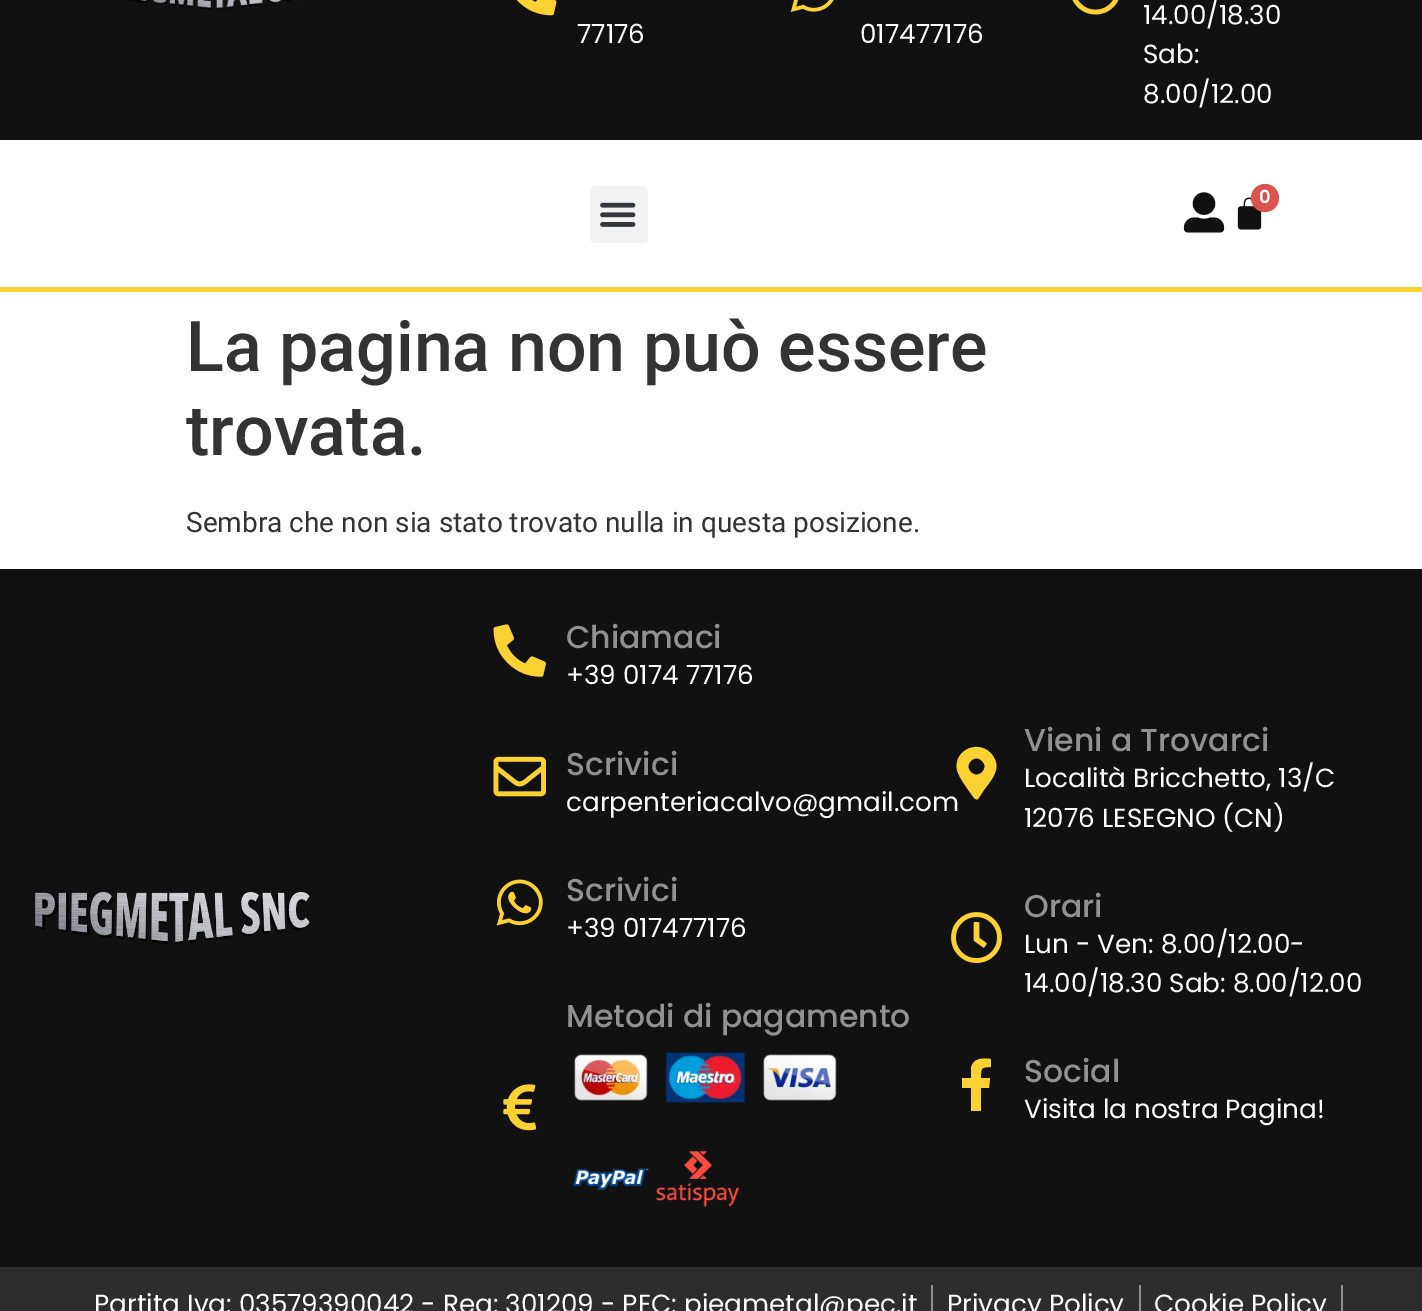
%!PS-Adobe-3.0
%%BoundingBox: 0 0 1422 1311
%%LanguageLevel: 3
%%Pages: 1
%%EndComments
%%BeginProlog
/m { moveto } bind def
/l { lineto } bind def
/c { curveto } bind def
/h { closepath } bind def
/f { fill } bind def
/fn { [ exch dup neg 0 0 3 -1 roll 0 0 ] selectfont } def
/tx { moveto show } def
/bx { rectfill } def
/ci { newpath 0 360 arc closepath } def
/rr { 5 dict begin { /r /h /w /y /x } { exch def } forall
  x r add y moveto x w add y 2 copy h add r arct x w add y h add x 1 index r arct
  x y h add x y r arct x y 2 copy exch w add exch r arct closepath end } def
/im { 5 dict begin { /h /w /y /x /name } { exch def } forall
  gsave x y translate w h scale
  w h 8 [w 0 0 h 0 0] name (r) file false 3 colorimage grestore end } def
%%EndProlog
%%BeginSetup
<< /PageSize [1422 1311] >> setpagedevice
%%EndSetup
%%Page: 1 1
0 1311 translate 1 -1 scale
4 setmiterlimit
1 setgray
0 0 1422 1311 bx
0.067 setgray
0 0 1422 140 bx
(image0.raw) 127 0 173 10 im
(image1.raw) 516 0 41 16 im
/Poppins-Regular 26.25 fn
1 setgray
(77176) 577 43 tx
(image2.raw) 790 0 44 12 im
(017477176) 860 43 tx
(image3.raw) 1072 0 47 15 im
(14.00/18.30) 1143 24 tx
(Sab:) 1143 63 tx
(8.00/12.00) 1143 103 tx
0.984 0.824 0.196 setrgbcolor
0 287 1422 5 bx
0.949 setgray
590 186 58 57 5 rr f
(image4.raw) 600 202 36 25 im
(image5.raw) 1183 192 42 41 im
(image6.raw) 1237 197 25 33 im
0.851 0.325 0.31 setrgbcolor
1265 198 14 ci f
/Poppins-SemiBold 18 fn
1 setgray
(0) 1259 203 tx
/Roboto-Medium 70 fn
0.2 setgray
(La pagina non può essere) 186 371 tx
(trovata.) 186 455 tx
/Roboto-Regular 28 fn
(Sembra che non sia stato trovato nulla in questa posizione.) 186 532 tx
0.067 setgray
0 569 1422 698 bx
(image7.raw) 35 892 275 53 im
(image8.raw) 493 624 53 53 im
/Poppins-Medium 31.5 fn
0.569 setgray
(Chiamaci) 566 648 tx
/Poppins-Regular 26.25 fn
1 setgray
(+39 0174 77176) 566 684 tx
(image9.raw) 493 756 53 41 im
/Poppins-Medium 31.5 fn
0.569 setgray
(Scrivici) 566 775 tx
/Poppins-Regular 26.25 fn
1 setgray
(carpenteriacalvo@gmail.com) 566 811 tx
(image10.raw) 496 879 47 47 im
/Poppins-Medium 31.5 fn
0.569 setgray
(Scrivici) 566 901 tx
/Poppins-Regular 26.25 fn
1 setgray
(+39 017477176) 566 937 tx
/Poppins-Medium 31.5 fn
0.569 setgray
(Metodi di pagamento) 566 1027 tx
(image11.raw) 574 1054 74 47 im
(image12.raw) 665 1052 80 51 im
(image13.raw) 763 1054 74 47 im
(image14.raw) 573 1168 76 22 im
(image15.raw) 656 1151 84 56 im
(image16.raw) 503 1084 34 47 im
0.984 0.824 0.196 setrgbcolor
974 798 m 970 792 959 778 957 770 c 953 749 981 738 993 756 c 1002 769 991 780 984 790 c 978 799 l 977 800 975 799 974 798 c h 971 772 m 978 780 990 768 982 761 c 975 753 963 765 971 772 c h f
0.569 setgray
(Vieni a Trovarci) 1024 751 tx
/Poppins-Regular 26.25 fn
1 setgray
(Località Bricchetto, 13/C) 1024 787 tx
(12076 LESEGNO \(CN\)) 1024 827 tx
(image17.raw) 951 912 51 51 im
/Poppins-Medium 31.5 fn
0.569 setgray
(Orari) 1024 917 tx
/Poppins-Regular 26.25 fn
1 setgray
(Lun - Ven: 8.00/12.00-) 1024 953 tx
(14.00/18.30 Sab: 8.00/12.00) 1024 992 tx
0.984 0.824 0.196 setrgbcolor
989 1088 m 981 1088 l 981 1111 l 971 1111 l 971 1088 l 962 1088 l 962 1078 l 971 1078 l 971 1068 l 973 1058 982 1058 991 1059 c 991 1067 l 980 1067 981 1069 981 1078 c 990 1078 l h f
/Poppins-Medium 31.5 fn
0.569 setgray
(Social) 1024 1082 tx
/Poppins-Regular 26.25 fn
1 setgray
(Visita la nostra Pagina!) 1024 1118 tx
0.173 0.176 0.176 setrgbcolor
0 1267 1422 44 bx
1 setgray
(Partita Iva: 03579390042 - Rea: 301209 - PEC: piegmetal@pec.it) 94 1313 tx
0.569 setgray
931 1285 2 26 bx
1 setgray
(Privacy Policy) 947 1313 tx
0.569 setgray
1139 1285 2 26 bx
1 setgray
(Cookie Policy) 1154 1313 tx
0.569 setgray
1341 1285 2 26 bx
showpage
%%EOF
